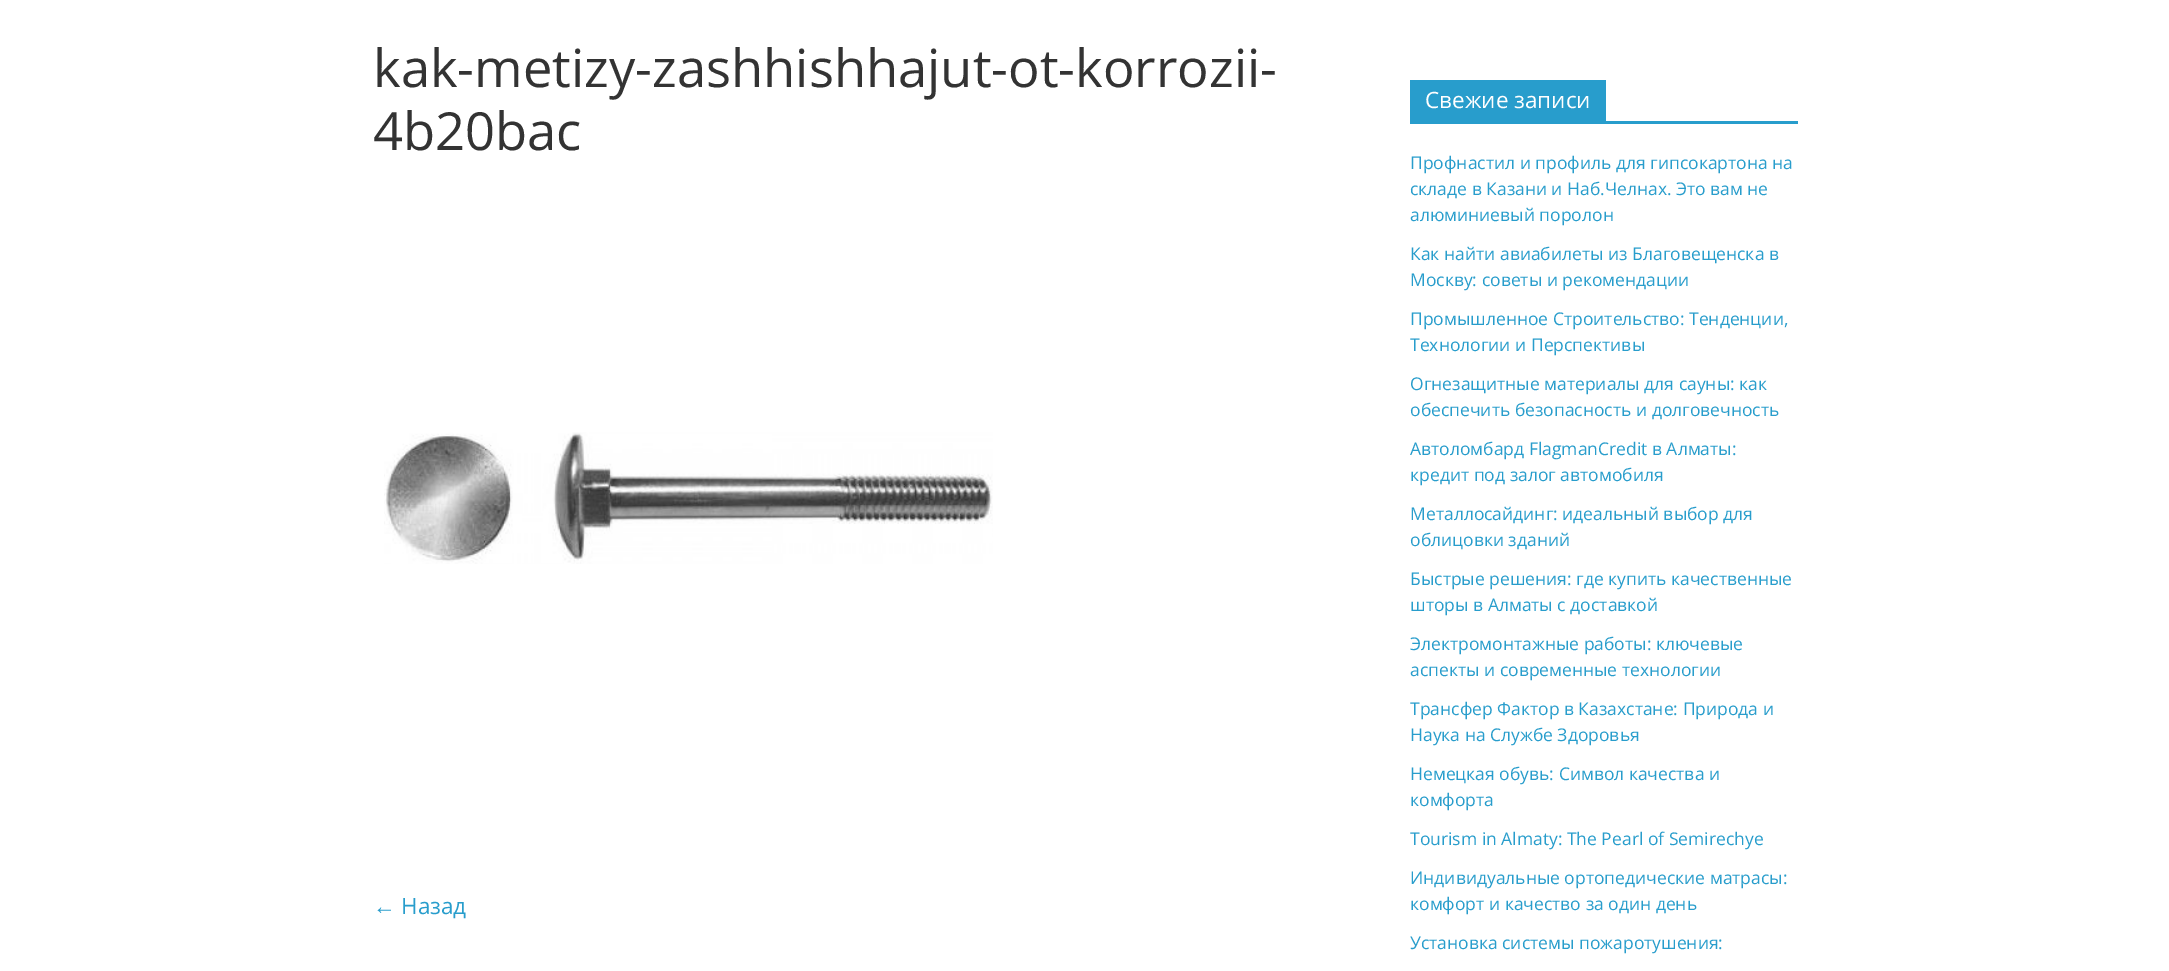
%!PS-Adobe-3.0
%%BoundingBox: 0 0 2169 971
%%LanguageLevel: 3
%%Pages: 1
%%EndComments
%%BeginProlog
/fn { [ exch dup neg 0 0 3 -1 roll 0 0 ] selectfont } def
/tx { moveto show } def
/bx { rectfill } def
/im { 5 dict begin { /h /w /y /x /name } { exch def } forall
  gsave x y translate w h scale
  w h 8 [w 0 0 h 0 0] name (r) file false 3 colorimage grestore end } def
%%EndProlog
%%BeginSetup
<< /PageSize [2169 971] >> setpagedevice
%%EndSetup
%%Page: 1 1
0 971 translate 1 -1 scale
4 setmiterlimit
1 setgray
0 0 2169 971 bx
/OpenSans-Regular 52.5 fn
0.2 setgray
(kak-metizy-zashhishhajut-ot-korrozii-) 373 87 tx
(4b20bac) 373 150 tx
(image0.raw) 384 432 609 132 im
/LiberationSerif-Regular 22.5 fn
0.157 0.616 0.8 setrgbcolor
(←) 373 914 tx
/OpenSans-Regular 22.5 fn
(Назад) 401 914 tx
1410 121 388 3 bx
1410 80 196 41 bx
1 setgray
(Свежие записи) 1425 108 tx
/OpenSans-Regular 17.5 fn
0.157 0.616 0.8 setrgbcolor
(Профнастил и профиль для гипсокартона на) 1410 169 tx
(складе в Казани и Наб.Челнах. Это вам не) 1410 195 tx
(алюминиевый поролон) 1410 221 tx
(Как найти авиабилеты из Благовещенска в) 1410 260 tx
(Москву: советы и рекомендации) 1410 286 tx
(Промышленное Строительство: Тенденции,) 1410 325 tx
(Технологии и Перспективы) 1410 351 tx
(Огнезащитные материалы для сауны: как) 1410 390 tx
(обеспечить безопасность и долговечность) 1410 416 tx
(Автоломбард FlagmanCredit в Алматы:) 1410 455 tx
(кредит под залог автомобиля) 1410 481 tx
(Металлосайдинг: идеальный выбор для) 1410 520 tx
(облицовки зданий) 1410 546 tx
(Быстрые решения: где купить качественные) 1410 585 tx
(шторы в Алматы с доставкой) 1410 611 tx
(Электромонтажные работы: ключевые) 1410 650 tx
(аспекты и современные технологии) 1410 676 tx
(Трансфер Фактор в Казахстане: Природа и) 1410 715 tx
(Наука на Службе Здоровья) 1410 741 tx
(Немецкая обувь: Символ качества и) 1410 780 tx
(комфорта) 1410 806 tx
(Tourism in Almaty: The Pearl of Semirechye) 1410 845 tx
(Индивидуальные ортопедические матрасы:) 1410 884 tx
(комфорт и качество за один день) 1410 910 tx
(Установка системы пожаротушения:) 1410 949 tx
showpage
%%EOF
